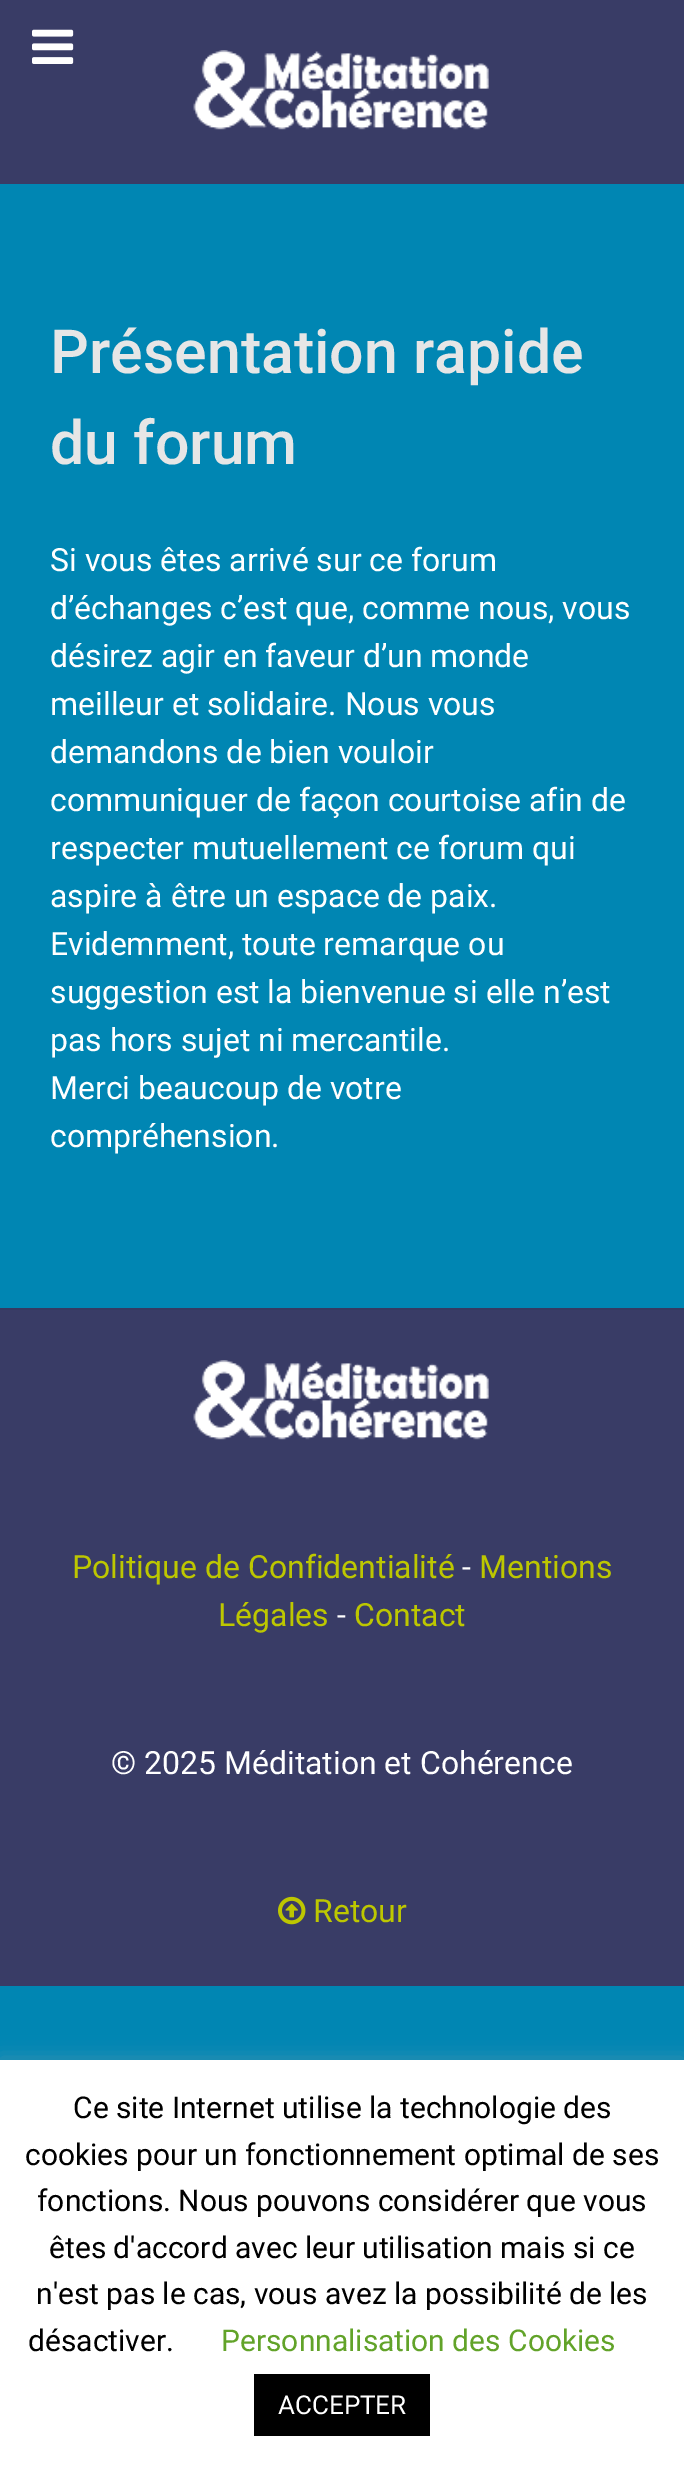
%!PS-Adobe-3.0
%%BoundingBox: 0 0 684 2470
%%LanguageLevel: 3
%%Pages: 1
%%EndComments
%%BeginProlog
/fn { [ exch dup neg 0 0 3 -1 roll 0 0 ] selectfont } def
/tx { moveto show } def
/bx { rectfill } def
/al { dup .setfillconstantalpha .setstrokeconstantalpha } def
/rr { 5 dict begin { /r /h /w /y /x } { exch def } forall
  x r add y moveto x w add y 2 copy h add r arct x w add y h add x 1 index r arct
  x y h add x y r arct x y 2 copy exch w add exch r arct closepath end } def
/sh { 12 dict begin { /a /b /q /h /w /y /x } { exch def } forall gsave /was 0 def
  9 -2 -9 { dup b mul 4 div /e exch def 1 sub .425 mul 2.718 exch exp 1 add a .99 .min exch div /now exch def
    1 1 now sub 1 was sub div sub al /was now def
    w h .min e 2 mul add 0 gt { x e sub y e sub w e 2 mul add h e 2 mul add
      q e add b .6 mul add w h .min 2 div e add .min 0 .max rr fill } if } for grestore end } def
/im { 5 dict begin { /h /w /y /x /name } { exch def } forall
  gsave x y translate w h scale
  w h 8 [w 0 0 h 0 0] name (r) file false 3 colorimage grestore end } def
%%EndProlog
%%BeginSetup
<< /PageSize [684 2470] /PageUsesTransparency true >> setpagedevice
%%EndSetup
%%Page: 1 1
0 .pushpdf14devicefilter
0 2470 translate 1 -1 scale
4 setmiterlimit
0 0.525 0.702 setrgbcolor
0 0 684 2470 bx
0.224 0.235 0.4 setrgbcolor
0 0 684 184 bx
(image0.raw) 193 50 296 80 im
(image1.raw) 32 29 42 35 im
/Roboto-Medium 60.75 fn
0.902 setgray
(Présentation rapide) 50 373 tx
(du forum) 50 464 tx
/Roboto-Regular 32 fn
1 setgray
(Si vous êtes arrivé sur ce forum) 50 571 tx
(d’échanges c’est que, comme nous, vous) 50 619 tx
(désirez agir en faveur d’un monde) 50 667 tx
(meilleur et solidaire. Nous vous) 50 715 tx
(demandons de bien vouloir) 50 763 tx
(communiquer de façon courtoise afin de) 50 811 tx
(respecter mutuellement ce forum qui) 50 859 tx
(aspire à être un espace de paix.) 50 907 tx
(Evidemment, toute remarque ou) 50 955 tx
(suggestion est la bienvenue si elle n’est) 50 1003 tx
(pas hors sujet ni mercantile.) 50 1051 tx
(Merci beaucoup de votre) 50 1099 tx
(compréhension.) 50 1147 tx
0.224 0.235 0.4 setrgbcolor
0 1310 684 676 bx
0.212 0.224 0.38 setrgbcolor
0 1308 684 2 bx
(image0.raw) 193 1360 296 80 im
0.741 0.78 0 setrgbcolor
(Politique de Confidentialité) 72 1578 tx
1 setgray
(-) 462 1578 tx
0.741 0.78 0 setrgbcolor
(Mentions) 479 1578 tx
(Légales) 218 1626 tx
1 setgray
(-) 337 1626 tx
0.741 0.78 0 setrgbcolor
(Contact) 354 1626 tx
1 setgray
(© 2025 Méditation et Cohérence) 111 1774 tx
(image2.raw) 278 1896 28 29 im
0.741 0.78 0 setrgbcolor
(Retour) 313 1922 tx
0.675 0.671 0.671 setrgbcolor
0 2058 684 410 0 10 0.3 sh
1 setgray
0 2060 684 410 bx
/Roboto-Regular 30 fn
0 setgray
(Ce site Internet utilise la technologie des) 73 2118 tx
(cookies pour un fonctionnement optimal de ses) 25 2165 tx
(fonctions. Nous pouvons considérer que vous) 37 2211 tx
(êtes d'accord avec leur utilisation mais si ce) 49 2258 tx
(n'est pas le cas, vous avez la possibilité de les) 36 2304 tx
(désactiver.) 28 2351 tx
0.384 0.639 0.161 setrgbcolor
(Personnalisation des Cookies) 221 2351 tx
0 setgray
254 2374 176 62 bx
/Roboto-Regular 26 fn
1 setgray
(ACCEPTER) 278 2414 tx
.poppdf14devicefilter showpage
%%EOF
